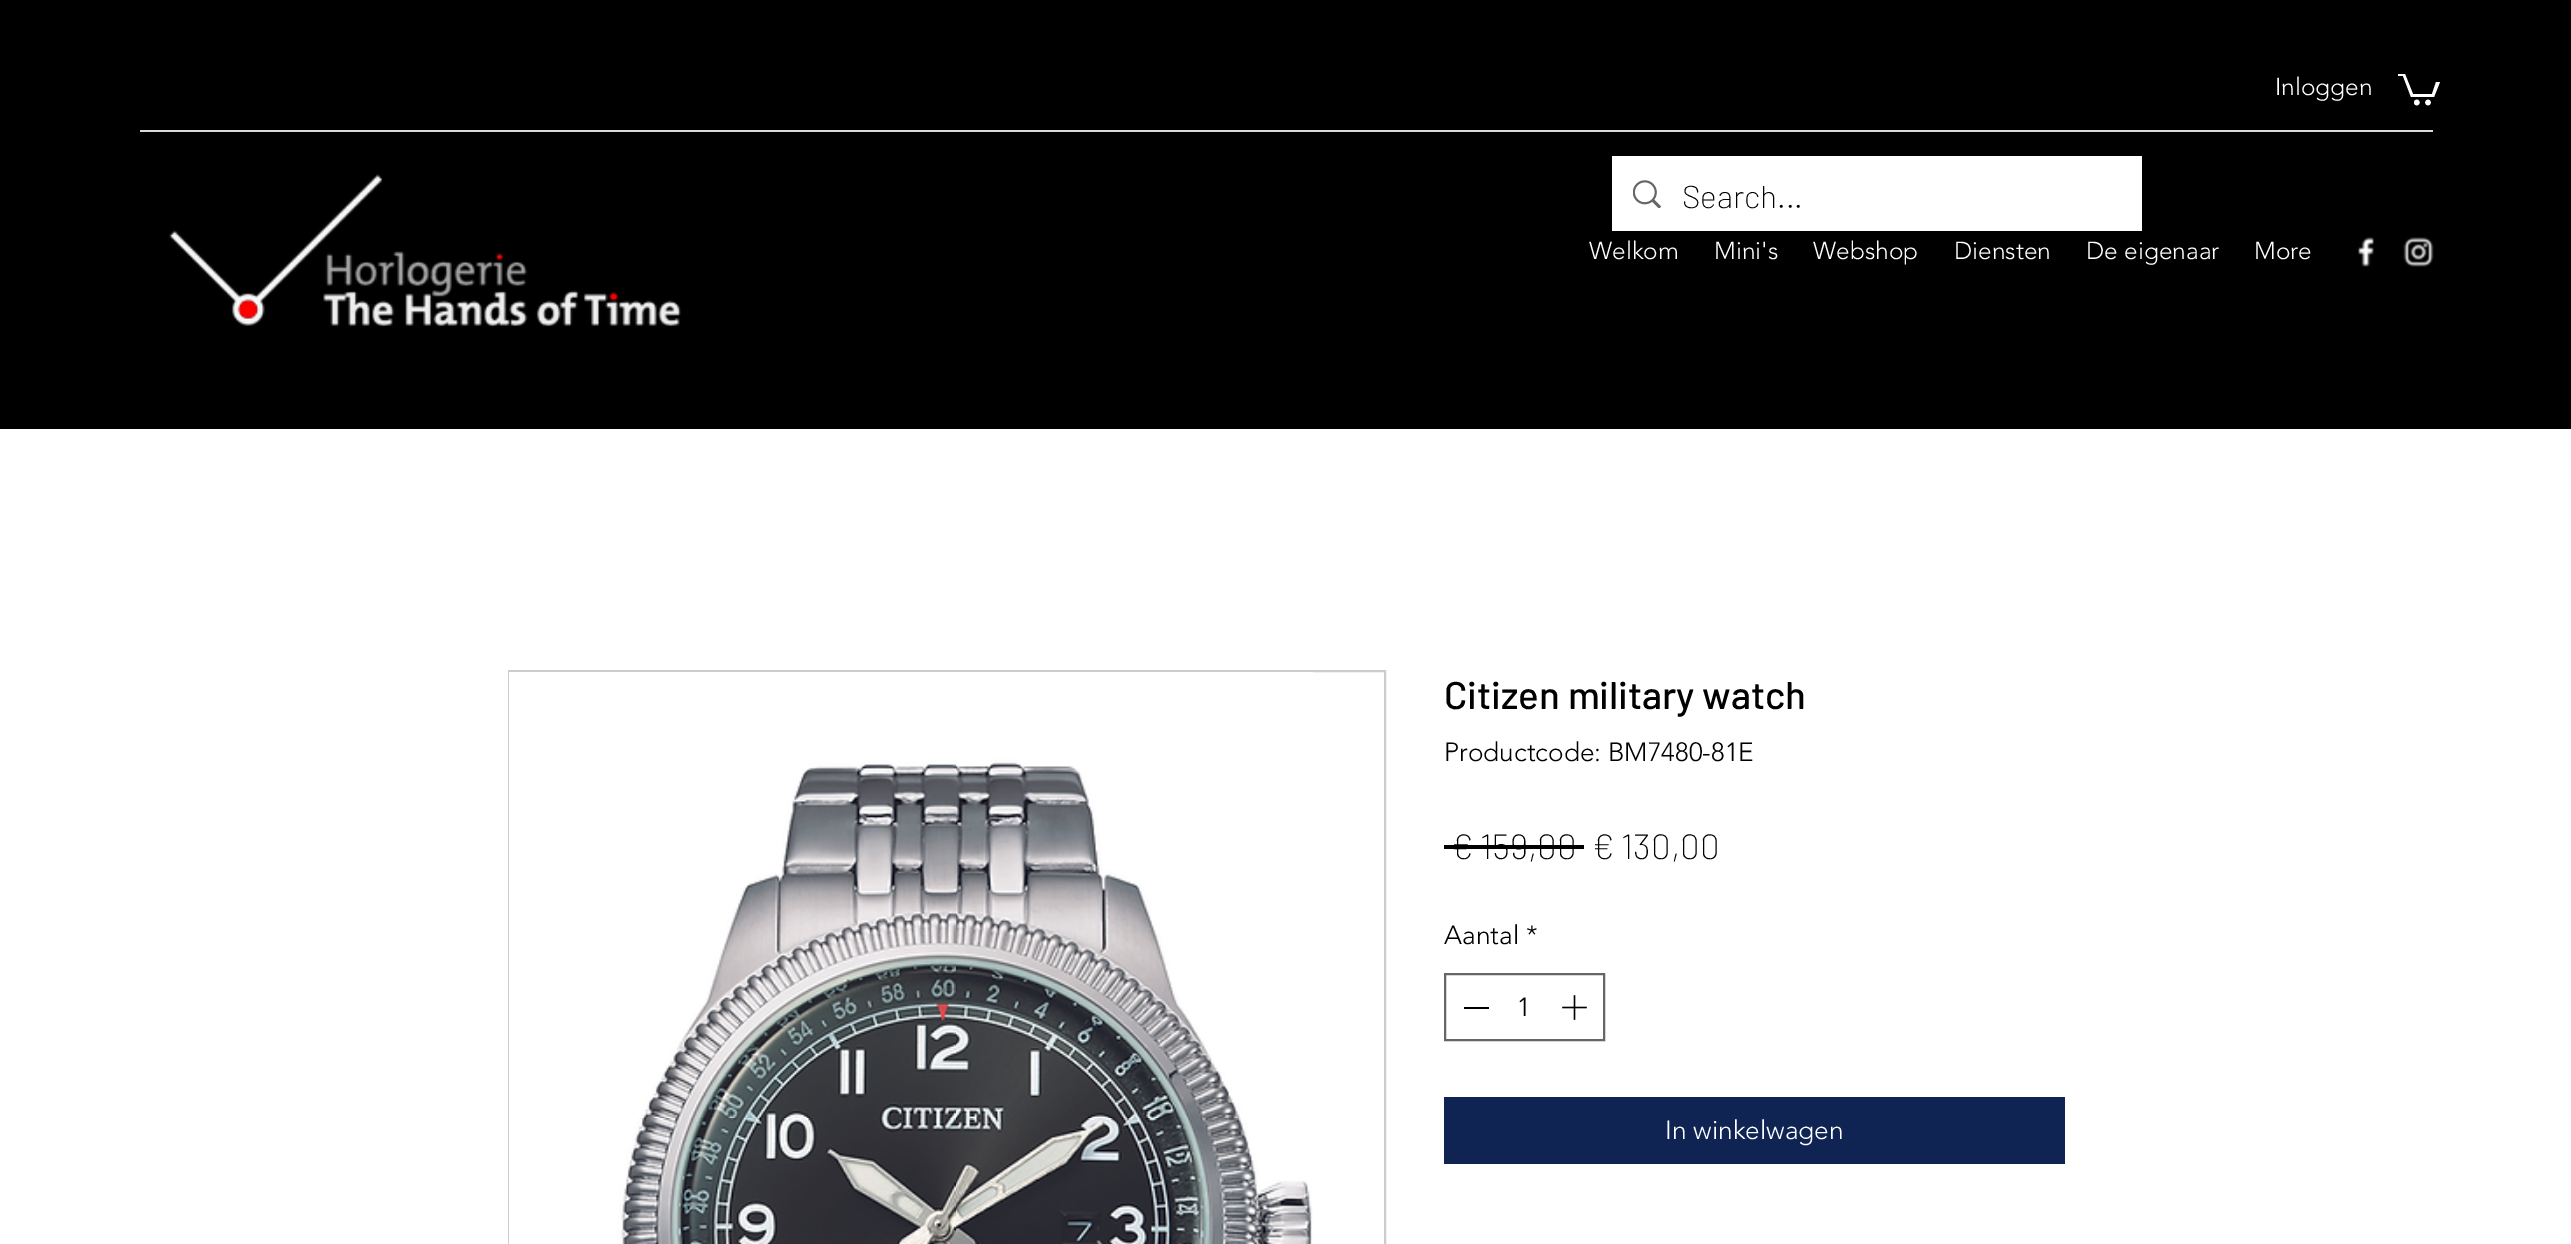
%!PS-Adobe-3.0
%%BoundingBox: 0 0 2571 1244
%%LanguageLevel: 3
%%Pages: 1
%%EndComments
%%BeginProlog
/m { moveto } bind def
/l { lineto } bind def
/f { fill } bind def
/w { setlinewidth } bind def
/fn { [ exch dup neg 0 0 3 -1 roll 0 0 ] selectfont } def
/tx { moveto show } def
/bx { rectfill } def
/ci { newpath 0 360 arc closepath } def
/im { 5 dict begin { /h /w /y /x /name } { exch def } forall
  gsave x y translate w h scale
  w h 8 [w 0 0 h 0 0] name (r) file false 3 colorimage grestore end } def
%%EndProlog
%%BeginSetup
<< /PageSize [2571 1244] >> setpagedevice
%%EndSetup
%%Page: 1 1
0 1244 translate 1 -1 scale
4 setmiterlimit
1 setgray
0 0 2571 1244 bx
0 setgray
0 0 2571 429 bx
/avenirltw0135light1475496-Light 24.5 fn
1 setgray
(Inloggen) 2275 95 tx
2440 82 m 2434 97 l 2411 97 l 2403 76 l 2398 76 l 2398 74 l 2405 74 l 2413 94 l 2432 94 l 2436 82 l f
2428 102.5 2.8 ci f
2416.8 102.5 2.8 ci f
0.851 setgray
140 130 2293 2 bx
1 setgray
1612 156 530 75 bx
(image0.raw) 1633 180 28 28 im
/Barlow-ExtraLight 31.5 fn
0 setgray
(Search...) 1682 208 tx
(image1.raw) 169 174 512 153 im
/avenirltw0135light1475496-Light 24.5 fn
1 setgray
(Welkom) 1589 259 tx
(Mini's) 1714 259 tx
(Webshop) 1813 259 tx
(Diensten) 1954 259 tx
(De eigenaar) 2086 259 tx
(More) 2254 259 tx
(image2.raw) 2358 237 16 30 im
(image3.raw) 2403 237 31 30 im
0.8 setgray
2 w
509 671 876 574 rectstroke
(image4.raw) 509 672 804 572 im
/Barlow-Medium 38.5 fn
0 setgray
(Citizen military watch) 1444 709 tx
/avenirltw0135light1475496-Light 26.25 fn
(Productcode: BM7480-81E) 1444 761 tx
/Barlow-ExtraLight 35 fn
(€ 159,00) 1451 859 tx
1444 845 140 4 bx
(€ 130,00) 1592 859 tx
/avenirltw0135light1475496-Light 26.25 fn
(Aantal *) 1444 944 tx
0.4 setgray
1445 974 159 66 rectstroke
0 setgray
1464 1007 25 2 bx
(1) 1517 1016 tx
(image5.raw) 1562 995 25 25 im
0.059 0.141 0.325 setrgbcolor
1444 1097 621 67 bx
1 setgray
(In winkelwagen) 1665 1139 tx
showpage
%%EOF
